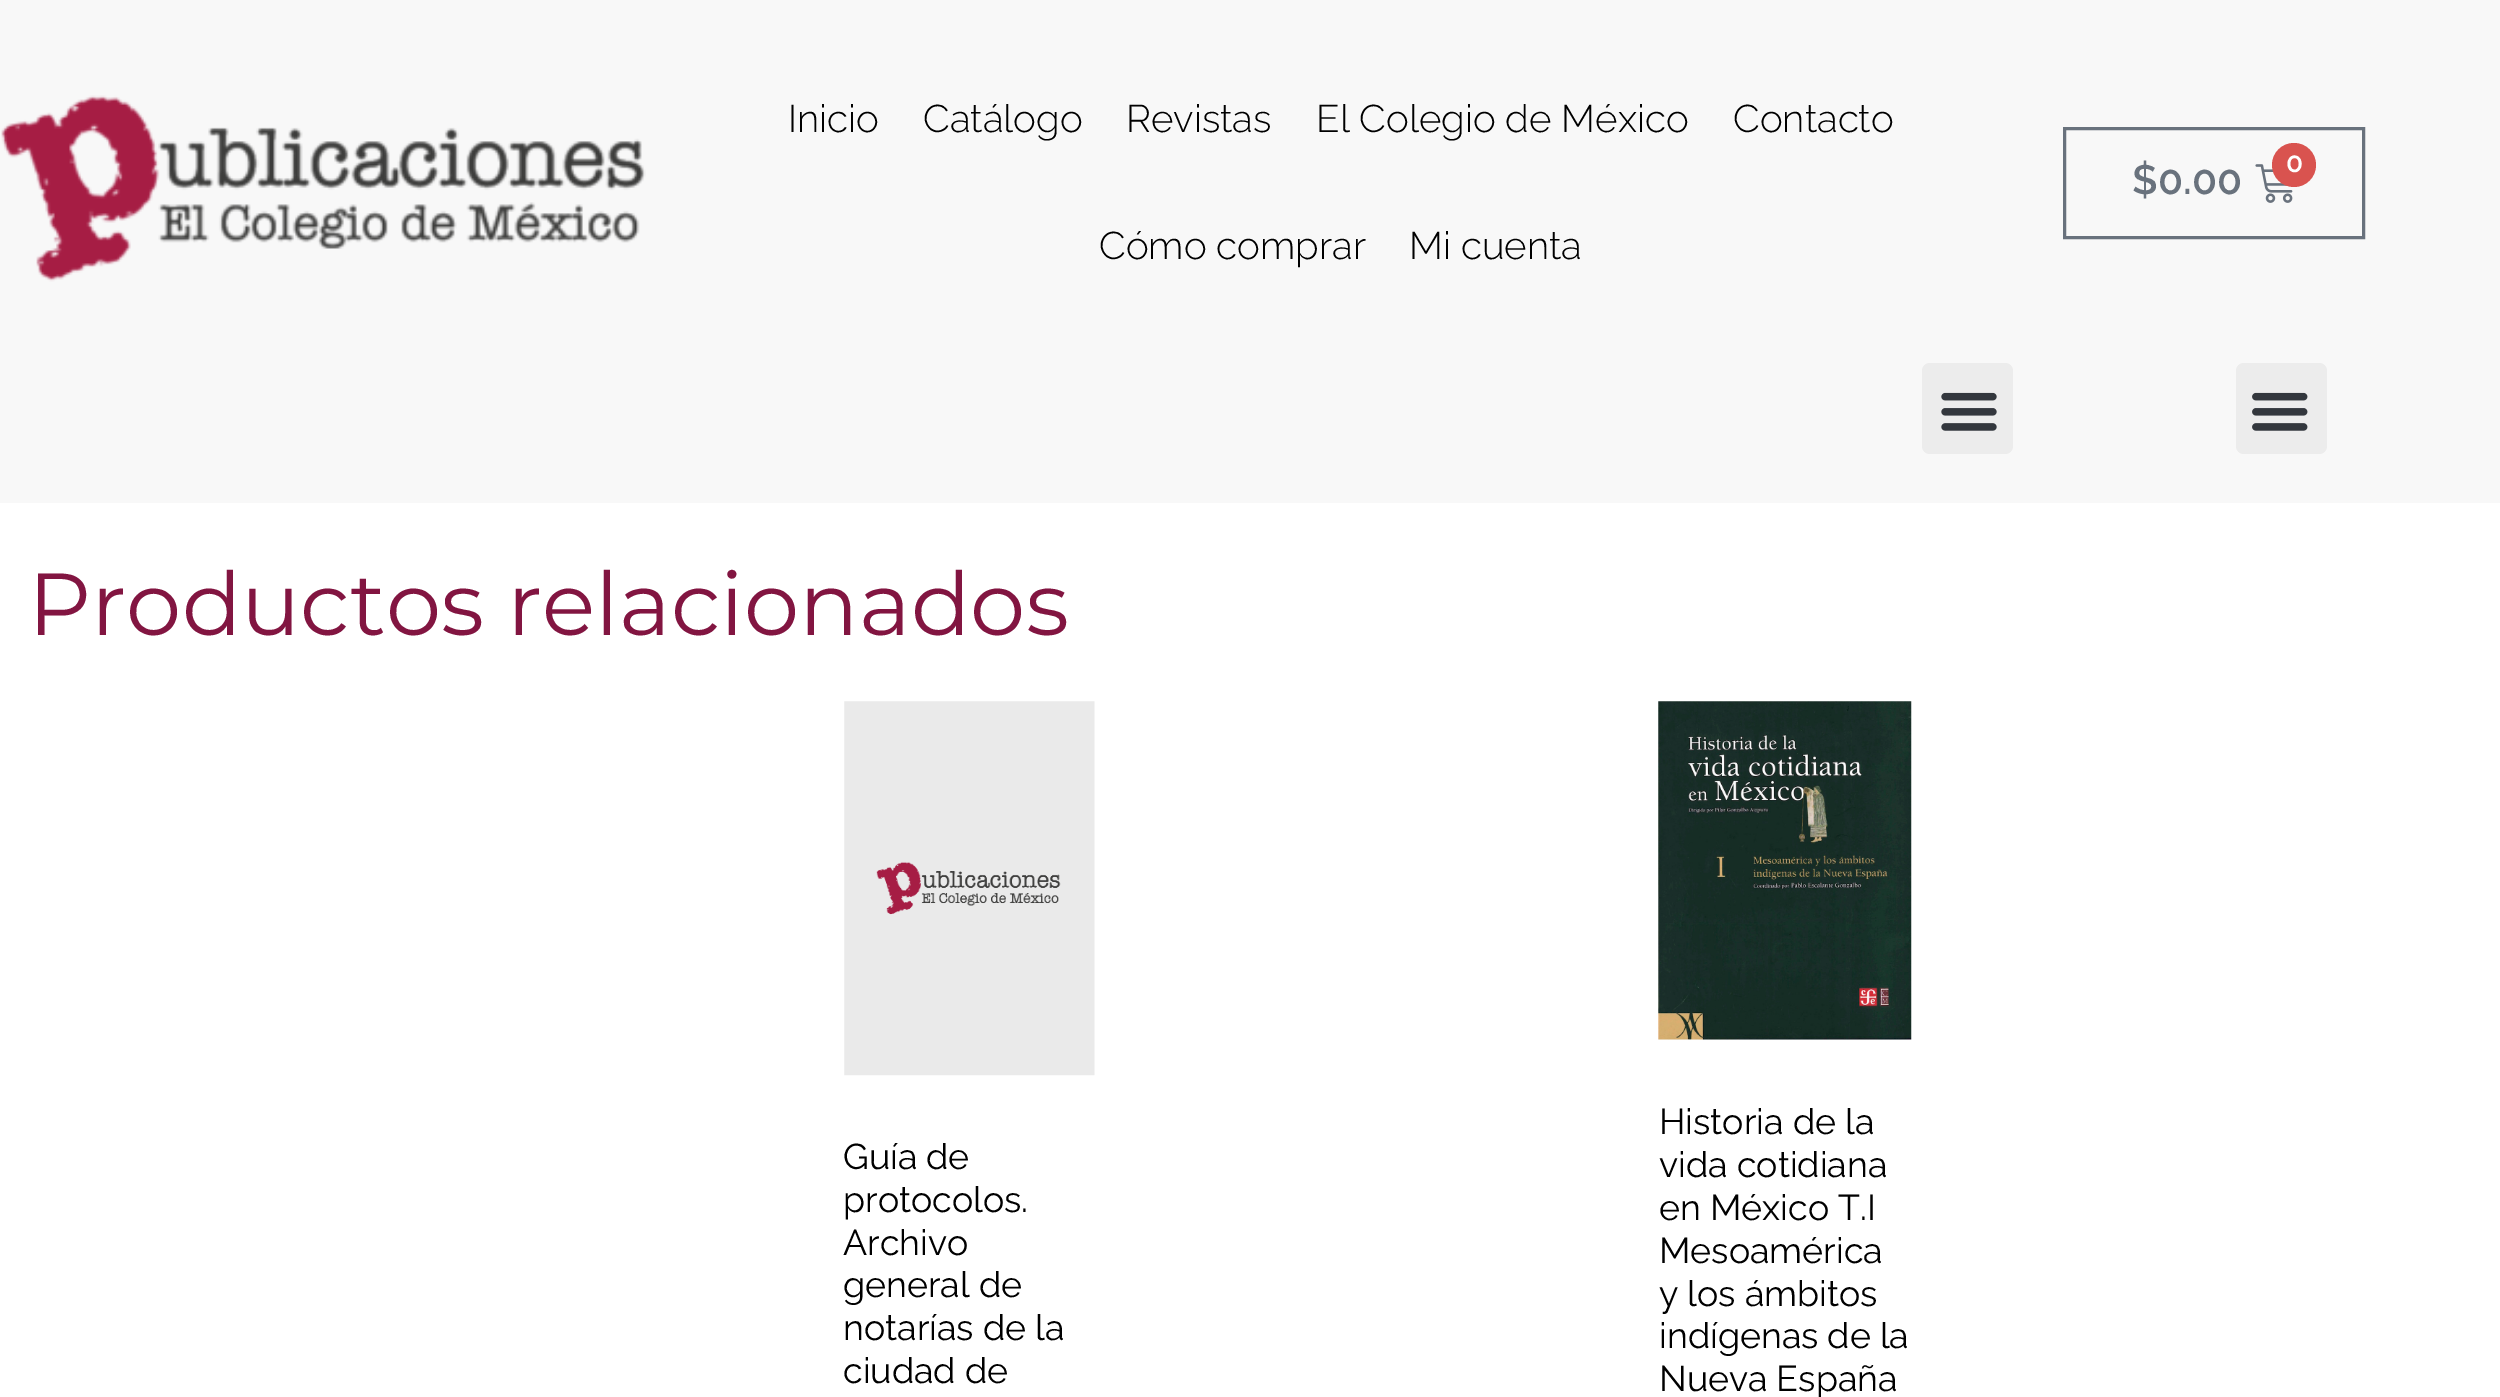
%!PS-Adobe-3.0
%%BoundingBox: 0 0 2500 1397
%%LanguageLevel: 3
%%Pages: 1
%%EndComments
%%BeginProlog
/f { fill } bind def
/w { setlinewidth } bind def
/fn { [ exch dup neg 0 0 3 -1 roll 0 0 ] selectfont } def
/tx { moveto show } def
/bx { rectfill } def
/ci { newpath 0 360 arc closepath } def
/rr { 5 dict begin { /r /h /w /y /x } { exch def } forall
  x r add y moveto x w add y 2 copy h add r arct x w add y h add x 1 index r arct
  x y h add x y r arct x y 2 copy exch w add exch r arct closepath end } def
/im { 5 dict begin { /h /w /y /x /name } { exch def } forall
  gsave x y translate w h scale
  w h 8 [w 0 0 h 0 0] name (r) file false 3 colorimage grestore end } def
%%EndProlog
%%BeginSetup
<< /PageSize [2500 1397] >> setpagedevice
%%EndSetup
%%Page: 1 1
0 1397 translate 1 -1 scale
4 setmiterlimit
1 setgray
0 0 2500 1397 bx
0.973 setgray
0 0 2500 503 bx
(image0.raw) 1 95 645 187 im
/Raleway-Light 38.5 fn
0 setgray
(Inicio) 788 132 tx
(Catálogo) 923 132 tx
(Revistas) 1126 132 tx
(El Colegio de México) 1316 132 tx
(Contacto) 1733 132 tx
(Cómo comprar) 1099 259 tx
(Mi cuenta) 1409 259 tx
0.412 0.447 0.49 setrgbcolor
3 w
2064.5 128.5 299 109 rectstroke
/Raleway-SemiBold 41 fn
($0.00) 2132 194 tx
(image1.raw) 2255 164 38 39 im
0.851 0.325 0.31 setrgbcolor
2294 165 22 ci f
/Raleway-SemiBold 28 fn
1 setgray
(0) 2286 172 tx
0.925 setgray
1922 363 91 91 8 rr f
(image2.raw) 1941 392 56 39 im
2236 363 91 91 8 rr f
(image3.raw) 2252 392 56 39 im
/Montserrat-Regular 88 fn
0.51 0.082 0.255 setrgbcolor
(Productos relacionados) 28 635 tx
(image4.raw) 844 701 251 375 im
/Raleway-Regular 35.75 fn
0 setgray
(Guía de) 843 1169 tx
(protocolos.) 843 1212 tx
(Archivo) 843 1255 tx
(general de) 843 1297 tx
(notarías de la) 843 1340 tx
(ciudad de) 843 1383 tx
(image5.raw) 1658 701 254 339 im
(Historia de la) 1659 1134 tx
(vida cotidiana) 1659 1177 tx
(en México T.I) 1659 1220 tx
(Mesoamérica) 1659 1263 tx
(y los ámbitos) 1659 1306 tx
(indígenas de la) 1659 1348 tx
(Nueva España) 1659 1391 tx
showpage
%%EOF
